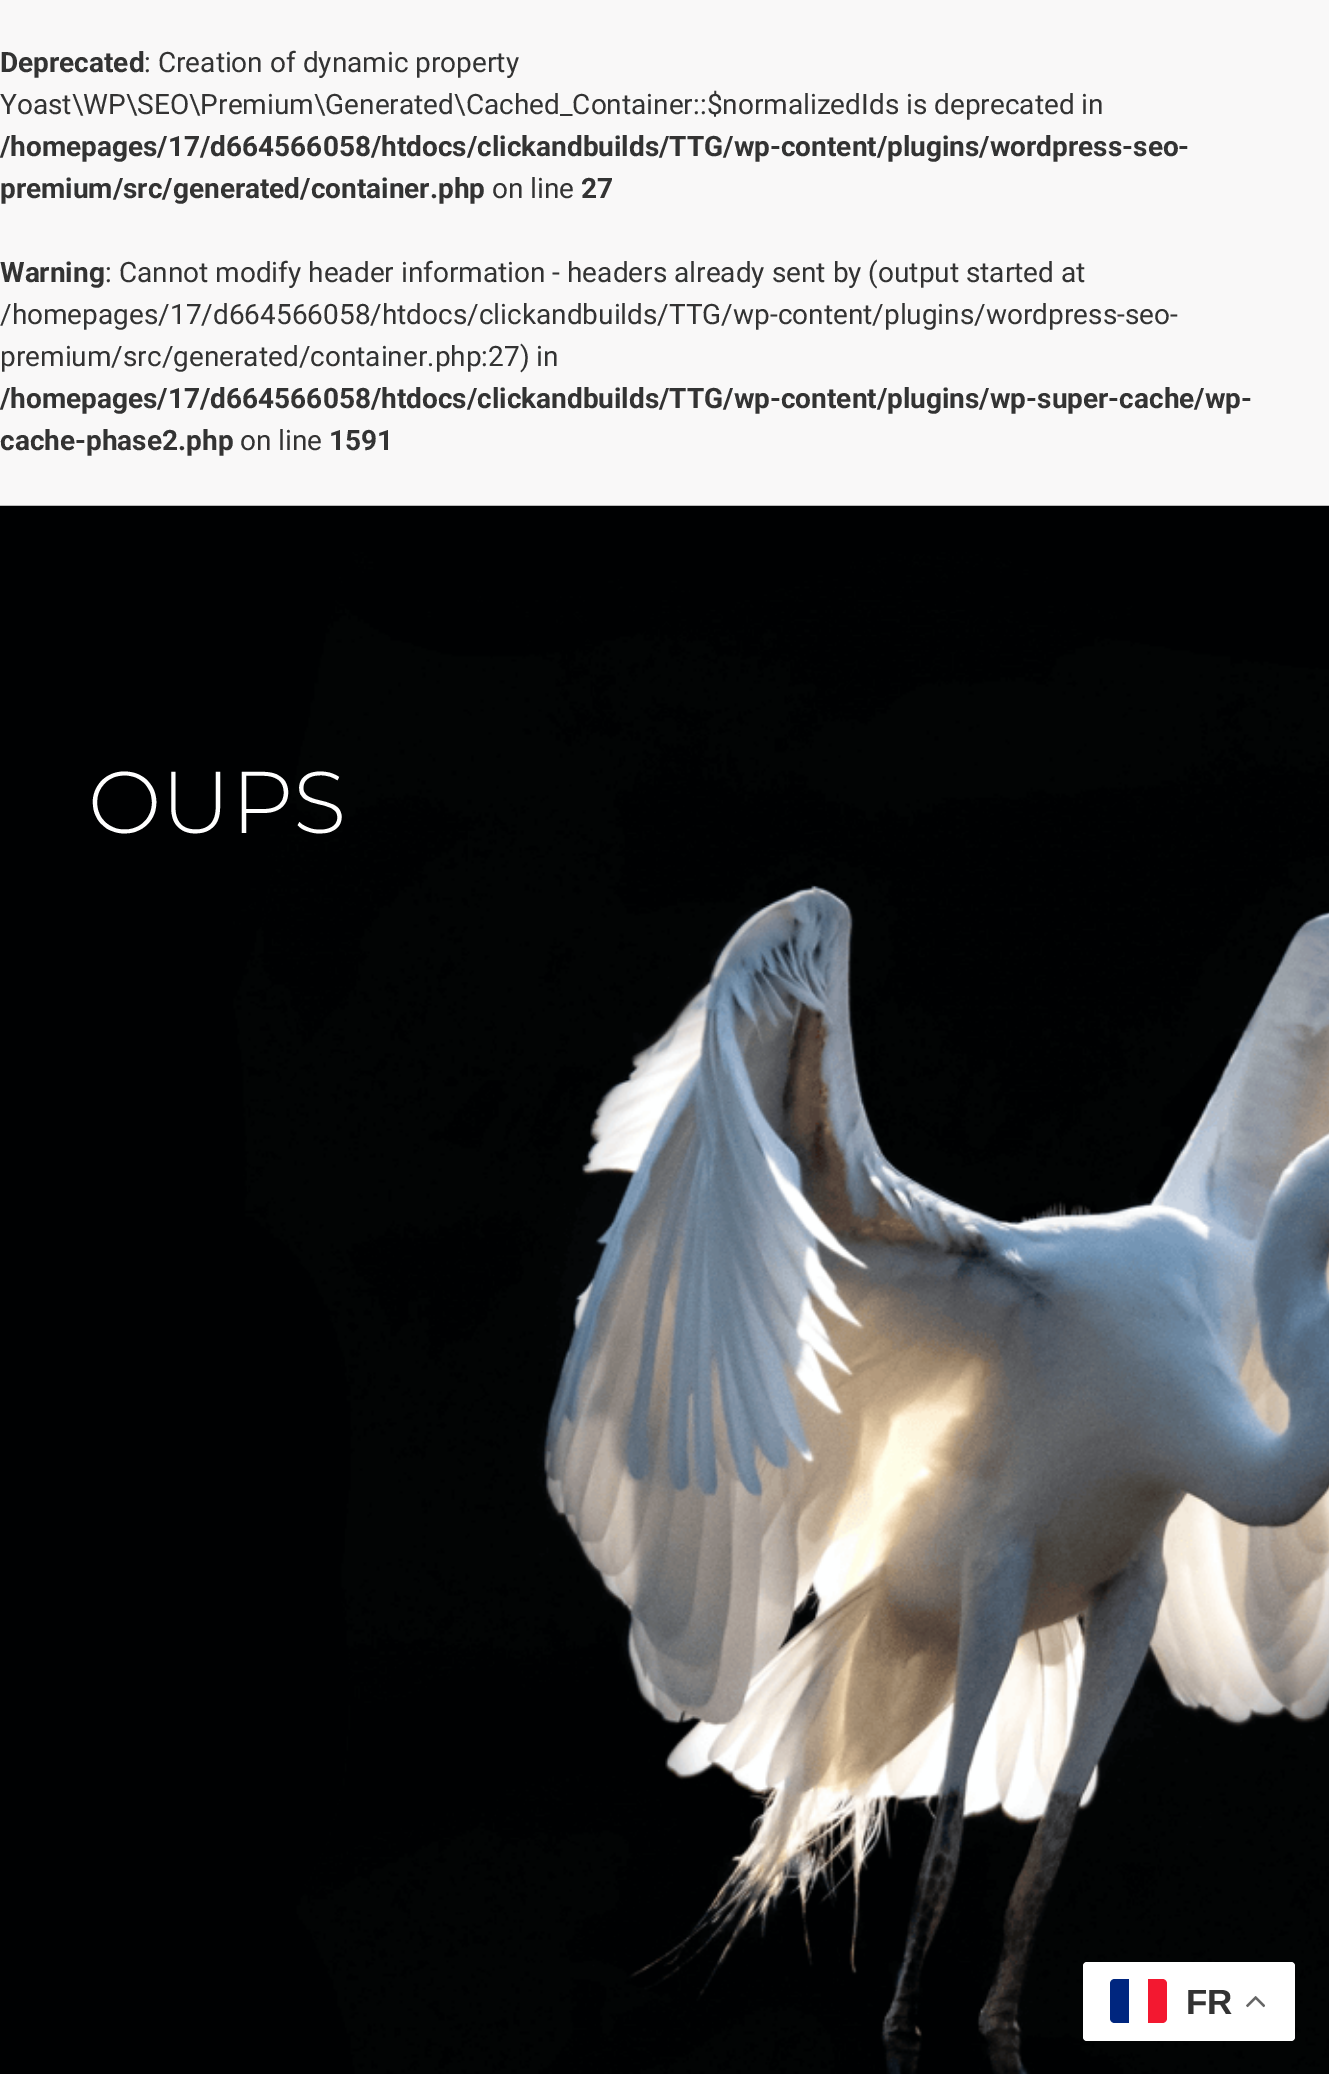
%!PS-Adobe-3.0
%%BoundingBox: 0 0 1329 2074
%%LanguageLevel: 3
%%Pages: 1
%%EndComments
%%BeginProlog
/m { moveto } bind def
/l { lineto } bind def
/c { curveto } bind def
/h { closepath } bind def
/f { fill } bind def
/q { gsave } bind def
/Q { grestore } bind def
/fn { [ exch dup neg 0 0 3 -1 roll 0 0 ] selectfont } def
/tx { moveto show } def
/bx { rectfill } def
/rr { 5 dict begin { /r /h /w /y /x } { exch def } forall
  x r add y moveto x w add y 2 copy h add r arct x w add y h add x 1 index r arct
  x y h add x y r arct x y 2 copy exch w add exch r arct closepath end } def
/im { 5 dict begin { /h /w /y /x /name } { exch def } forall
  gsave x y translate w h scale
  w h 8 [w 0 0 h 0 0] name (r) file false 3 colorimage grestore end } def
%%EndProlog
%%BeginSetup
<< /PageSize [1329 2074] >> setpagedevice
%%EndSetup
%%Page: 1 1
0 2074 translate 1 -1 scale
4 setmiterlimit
1 setgray
0 0 1329 2074 bx
q 0 0 m 1329 0 l 1329 506 l 0 506 l h clip newpath
<< /ShadingType 2 /ColorSpace /DeviceRGB /Coords [665 0 665 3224] /Extend [true true] /Function << /FunctionType 2 /Domain [0 1] /C0 [0.976 0.973 0.973] /C1 [1 1 1] /N 1 >> >> shfill Q
/Roboto-Bold 28 fn
0.2 setgray
(Deprecated) 0 72 tx
/Roboto-Regular 28 fn
(: Creation of dynamic property) 144 72 tx
(Yoast\\WP\\SEO\\Premium\\Generated\\Cached_Container::$normalizedIds is deprecated in) 0 114 tx
/Roboto-Bold 28 fn
(/homepages/17/d664566058/htdocs/clickandbuilds/TTG/wp-content/plugins/wordpress-seo-) 0 156 tx
(premium/src/generated/container.php) 0 198 tx
/Roboto-Regular 28 fn
(on line) 492 198 tx
/Roboto-Bold 28 fn
(27) 581 198 tx
(Warning) 0 282 tx
/Roboto-Regular 28 fn
(: Cannot modify header information - headers already sent by \(output started at) 105 282 tx
(/homepages/17/d664566058/htdocs/clickandbuilds/TTG/wp-content/plugins/wordpress-seo-) 0 324 tx
(premium/src/generated/container.php:27\) in) 0 366 tx
/Roboto-Bold 28 fn
(/homepages/17/d664566058/htdocs/clickandbuilds/TTG/wp-content/plugins/wp-super-cache/wp-) 0 408 tx
(cache-phase2.php) 0 450 tx
/Roboto-Regular 28 fn
(on line) 240 450 tx
/Roboto-Bold 28 fn
(1591) 329 450 tx
(image0.raw) 0 505 1329 1569 im
/Montserrat-Light 87.5 fn
1 setgray
(OUPS) 88 833 tx
1083 1962 212 79 4 rr f
0 0.149 0.498 setrgbcolor
1115 1979 m 1129 1979 l 1129 2023 l 1115 2023 l 1112 2023 1110 2021 1110 2018 c 1110 1984 l 1110 1981 1112 1979 1115 1979 c h f
0.953 0.094 0.188 setrgbcolor
1148 1979 m 1162 1979 l 1165 1979 1167 1981 1167 1984 c 1167 2018 l 1167 2021 1165 2023 1162 2023 c 1148 2023 l h f
/LiberationSans-Bold 35 fn
0.2 setgray
(FR) 1186 2014 tx
(image1.raw) 1246 1996 19 12 im
showpage
%%EOF
